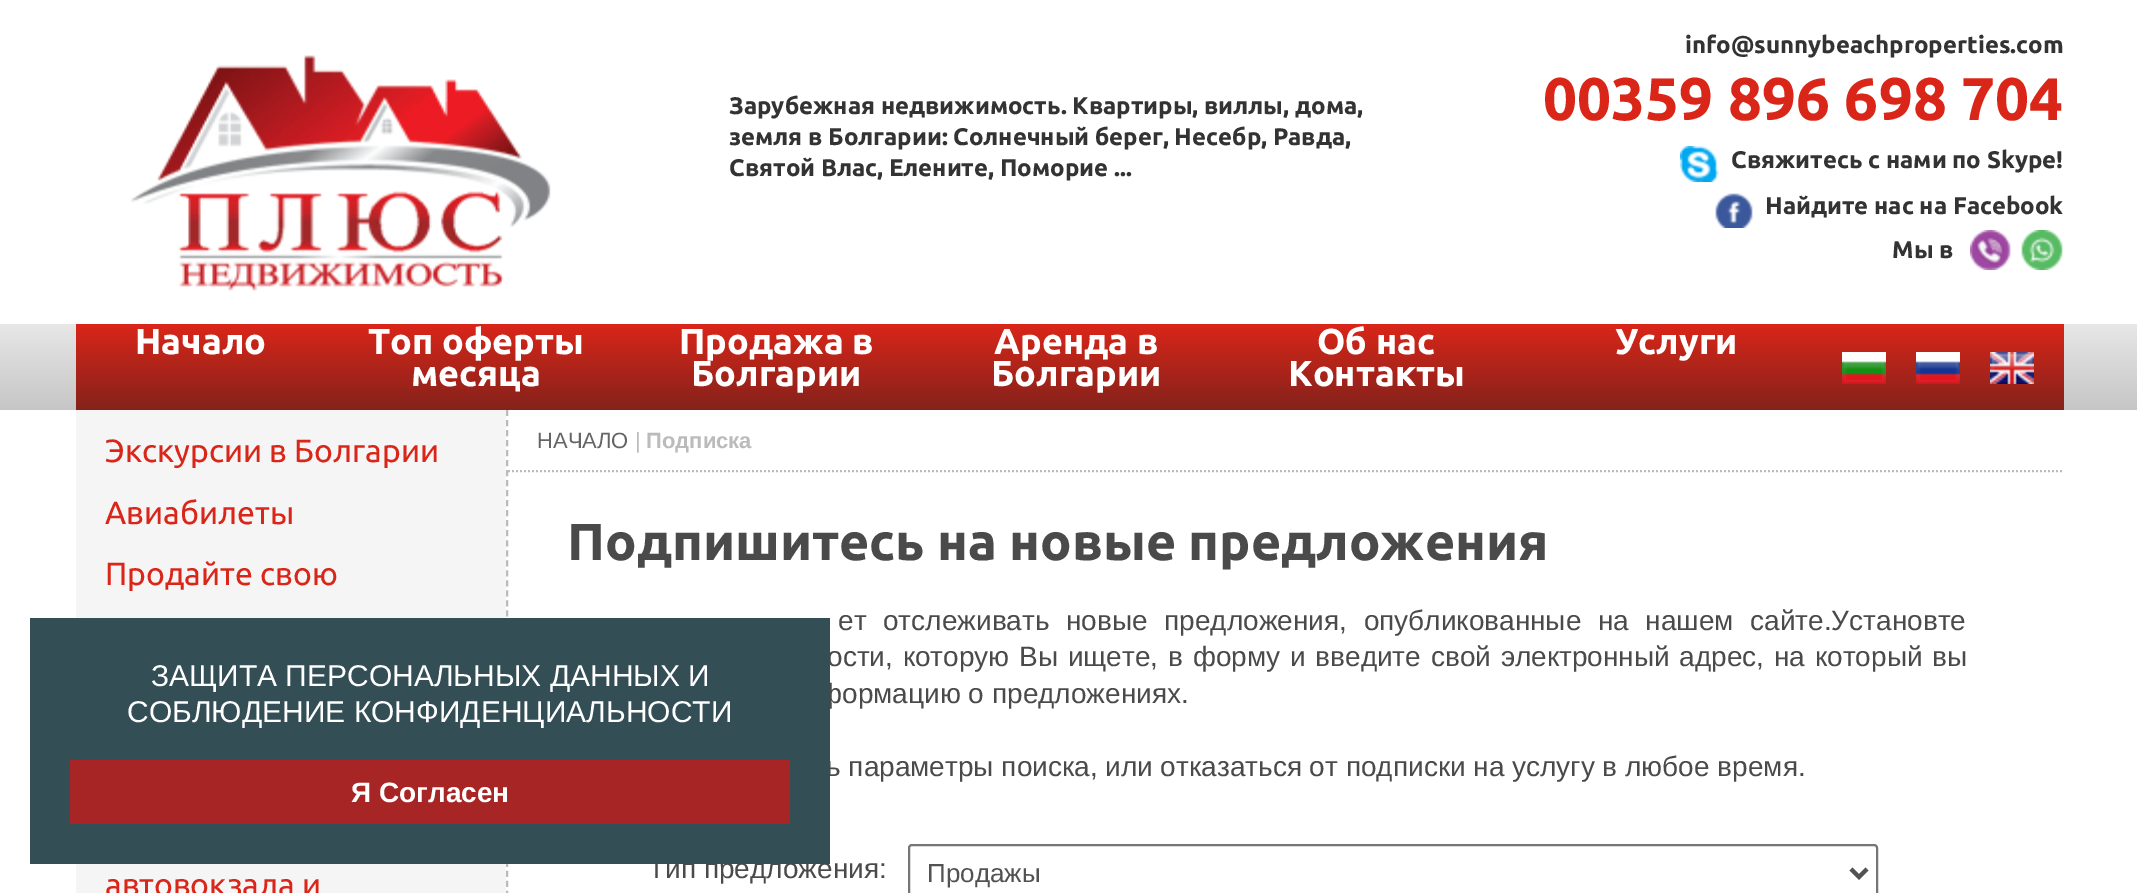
%!PS-Adobe-3.0
%%BoundingBox: 0 0 2137 893
%%LanguageLevel: 3
%%Pages: 1
%%EndComments
%%BeginProlog
/m { moveto } bind def
/l { lineto } bind def
/h { closepath } bind def
/S { stroke } bind def
/q { gsave } bind def
/Q { grestore } bind def
/w { setlinewidth } bind def
/fn { [ exch dup neg 0 0 3 -1 roll 0 0 ] selectfont } def
/tx { moveto show } def
/bx { rectfill } def
/rr { 5 dict begin { /r /h /w /y /x } { exch def } forall
  x r add y moveto x w add y 2 copy h add r arct x w add y h add x 1 index r arct
  x y h add x y r arct x y 2 copy exch w add exch r arct closepath end } def
/im { 5 dict begin { /h /w /y /x /name } { exch def } forall
  gsave x y translate w h scale
  w h 8 [w 0 0 h 0 0] name (r) file false 3 colorimage grestore end } def
%%EndProlog
%%BeginSetup
<< /PageSize [2137 893] >> setpagedevice
%%EndSetup
%%Page: 1 1
0 893 translate 1 -1 scale
4 setmiterlimit
1 setgray
0 0 2137 893 bx
(image0.raw) 130 55 421 236 im
/Ubuntu-Bold 24 fn
0.2 setgray
(Зарубежная недвижимость. Квартиры, виллы, дома,) 729 114 tx
(земля в Болгарии: Солнечный берег, Несебр, Равда,) 729 145 tx
(Святой Влас, Елените, Поморие ...) 729 176 tx
(info@sunnybeachproperties.com) 1685 53 tx
/Ubuntu-Bold 60 fn
0.855 0.149 0.098 setrgbcolor
(00359 896 698 704) 1543 120 tx
(image1.raw) 1680 146 39 36 im
/Ubuntu-Bold 24 fn
0.2 setgray
(Свяжитесь с нами по Skype!) 1731 168 tx
(image2.raw) 1715 193 38 35 im
(Найдите нас на Facebook) 1765 214 tx
(image3.raw) 1970 230 93 40 im
(Мы в) 1892 258 tx
q 0 324 m 2137 324 l 2137 410 l 0 410 l h clip newpath
<< /ShadingType 2 /ColorSpace /DeviceRGB /Coords [1069 324 1069 410] /Extend [true true] /Function << /FunctionType 2 /Domain [0 1] /C0 [0.906 0.906 0.906] /C1 [0.776 0.776 0.776] /N 1 >> >> shfill Q
q 76 324 m 2064 324 l 2064 410 l 76 410 l h clip newpath
<< /ShadingType 2 /ColorSpace /DeviceRGB /Coords [1070 324 1070 410] /Extend [true true] /Function << /FunctionType 2 /Domain [0 1] /C0 [0.855 0.149 0.098] /C1 [0.518 0.133 0.106] /N 1 >> >> shfill Q
/Ubuntu-Bold 36 fn
1 setgray
(Начало) 135 354 tx
(Топ оферты) 368 354 tx
(месяца) 411 386 tx
(Продажа в) 679 354 tx
(Болгарии) 691 386 tx
(Аренда в) 994 354 tx
(Болгарии) 991 386 tx
(Об нас) 1317 354 tx
(Контакты) 1288 386 tx
(Услуги) 1615 354 tx
(image4.raw) 1842 352 44 32 im
(image5.raw) 1916 352 44 32 im
(image6.raw) 1990 352 44 32 im
0.961 setgray
76 410 430 483 bx
/Ubuntu-Regular 32 fn
0.855 0.149 0.098 setrgbcolor
(Экскурсии в Болгарии) 105 462 tx
(Авиабилеты) 105 524 tx
(Продайте свою) 105 585 tx
(автовокзала и) 105 896 tx
0.733 setgray
2 w
[6 4.02] 0 setdash
507 410 m 507 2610 l S
[2 2] 0 setdash
508 471 m 2062 471 l S
/LiberationSans-Regular 22 fn
0.396 setgray
(НАЧАЛО) 537 448 tx
0.733 setgray
(|) 635 448 tx
/LiberationSans-Bold 22 fn
(Подписка) 646 448 tx
/Ubuntu-Bold 52 fn
0.29 setgray
(Подпишитесь на новые предложения) 567 560 tx
/LiberationSans-Regular 28 fn
838 630 m 8.75 0 32 (ет отслеживать новые предложения, опубликованные на нашем сайте.Установте) widthshow
827 666 m 2 0 32 (ости, которую Вы ищете, в форму и введите свой электронный адрес, на который вы) widthshow
(формацию о предложениях.) 819 703 tx
(ь параметры поиска, или отказаться от подписки на услугу в любое время.) 826 776 tx
(Тип предложения:) 648 878 tx
0.463 setgray
[] 0 setdash
909 845 968 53 3 rr S
0.322 setgray
4 w
1851 869 m 1859 877 l 1867 869 l S
/LiberationSans-Regular 26 fn
(Продажы) 927 882 tx
0.204 0.306 0.337 setrgbcolor
30 618 800 246 bx
/LiberationSans-Regular 30 fn
1 setgray
(ЗАЩИТА ПЕРСОНАЛЬНЫХ ДАННЫХ И) 151 686 tx
(СОБЛЮДЕНИЕ КОНФИДЕНЦИАЛЬНОСТИ) 127 722 tx
0.659 0.145 0.145 setrgbcolor
70 760 720 64 bx
/LiberationSans-Bold 28 fn
1 setgray
(Я Согласен) 351 802 tx
showpage
%%EOF
